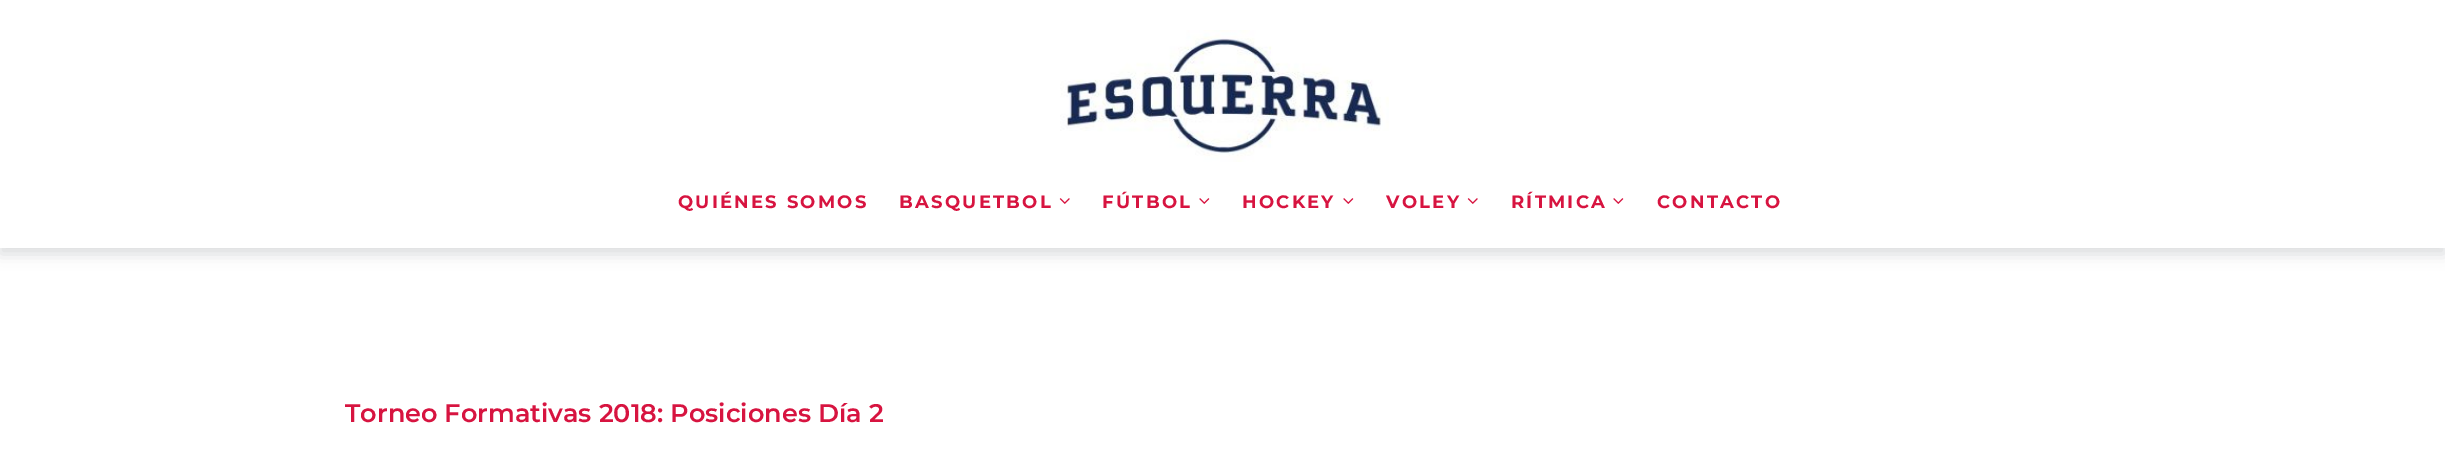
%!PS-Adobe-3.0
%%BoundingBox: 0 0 2445 462
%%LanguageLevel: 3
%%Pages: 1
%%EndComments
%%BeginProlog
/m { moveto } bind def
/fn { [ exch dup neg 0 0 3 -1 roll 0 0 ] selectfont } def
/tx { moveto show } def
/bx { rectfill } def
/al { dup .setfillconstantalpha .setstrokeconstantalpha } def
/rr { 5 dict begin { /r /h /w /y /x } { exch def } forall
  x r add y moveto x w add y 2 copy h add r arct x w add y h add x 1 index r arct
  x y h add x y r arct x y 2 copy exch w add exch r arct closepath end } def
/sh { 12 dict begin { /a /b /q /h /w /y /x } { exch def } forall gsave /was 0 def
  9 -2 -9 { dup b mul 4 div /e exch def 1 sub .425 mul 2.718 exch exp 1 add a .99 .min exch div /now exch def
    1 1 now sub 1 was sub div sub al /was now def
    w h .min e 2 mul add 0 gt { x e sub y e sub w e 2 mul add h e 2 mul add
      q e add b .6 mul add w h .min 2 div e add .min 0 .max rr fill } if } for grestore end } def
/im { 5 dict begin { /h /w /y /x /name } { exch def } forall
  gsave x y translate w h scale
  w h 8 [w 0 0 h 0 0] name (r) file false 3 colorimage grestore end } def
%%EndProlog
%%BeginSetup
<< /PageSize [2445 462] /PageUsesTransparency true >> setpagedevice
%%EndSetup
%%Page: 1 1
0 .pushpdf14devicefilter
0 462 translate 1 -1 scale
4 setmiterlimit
1 setgray
0 0 2445 462 bx
0.255 0.278 0.337 setrgbcolor
0 6 2445 248 0 7.5 0.2 sh
1 setgray
0 0 2445 248 bx
(image0.raw) 1060 30 329 132 im
/Montserrat-Bold 18 fn
0.843 0.078 0.251 setrgbcolor
678 208 m 2.25 0 (QUIÉNES SOMOS) ashow
899 208 m 2.25 0 (BASQUETBOL) ashow
(image1.raw) 1059 198 11 6 im
1102 208 m 2.25 0 (FÚTBOL) ashow
(image2.raw) 1199 198 11 6 im
1242 208 m 2.25 0 (HOCKEY) ashow
(image2.raw) 1343 198 11 6 im
1386 208 m 2.25 0 (VOLEY) ashow
(image1.raw) 1467 198 11 6 im
1511 208 m 2.25 0 (RÍTMICA) ashow
(image2.raw) 1613 198 11 6 im
1657 208 m 2.25 0 (CONTACTO) ashow
/Montserrat-SemiBold 25.5 fn
(Torneo Formativas 2018: Posiciones Día 2) 345 422 tx
.poppdf14devicefilter showpage
%%EOF
